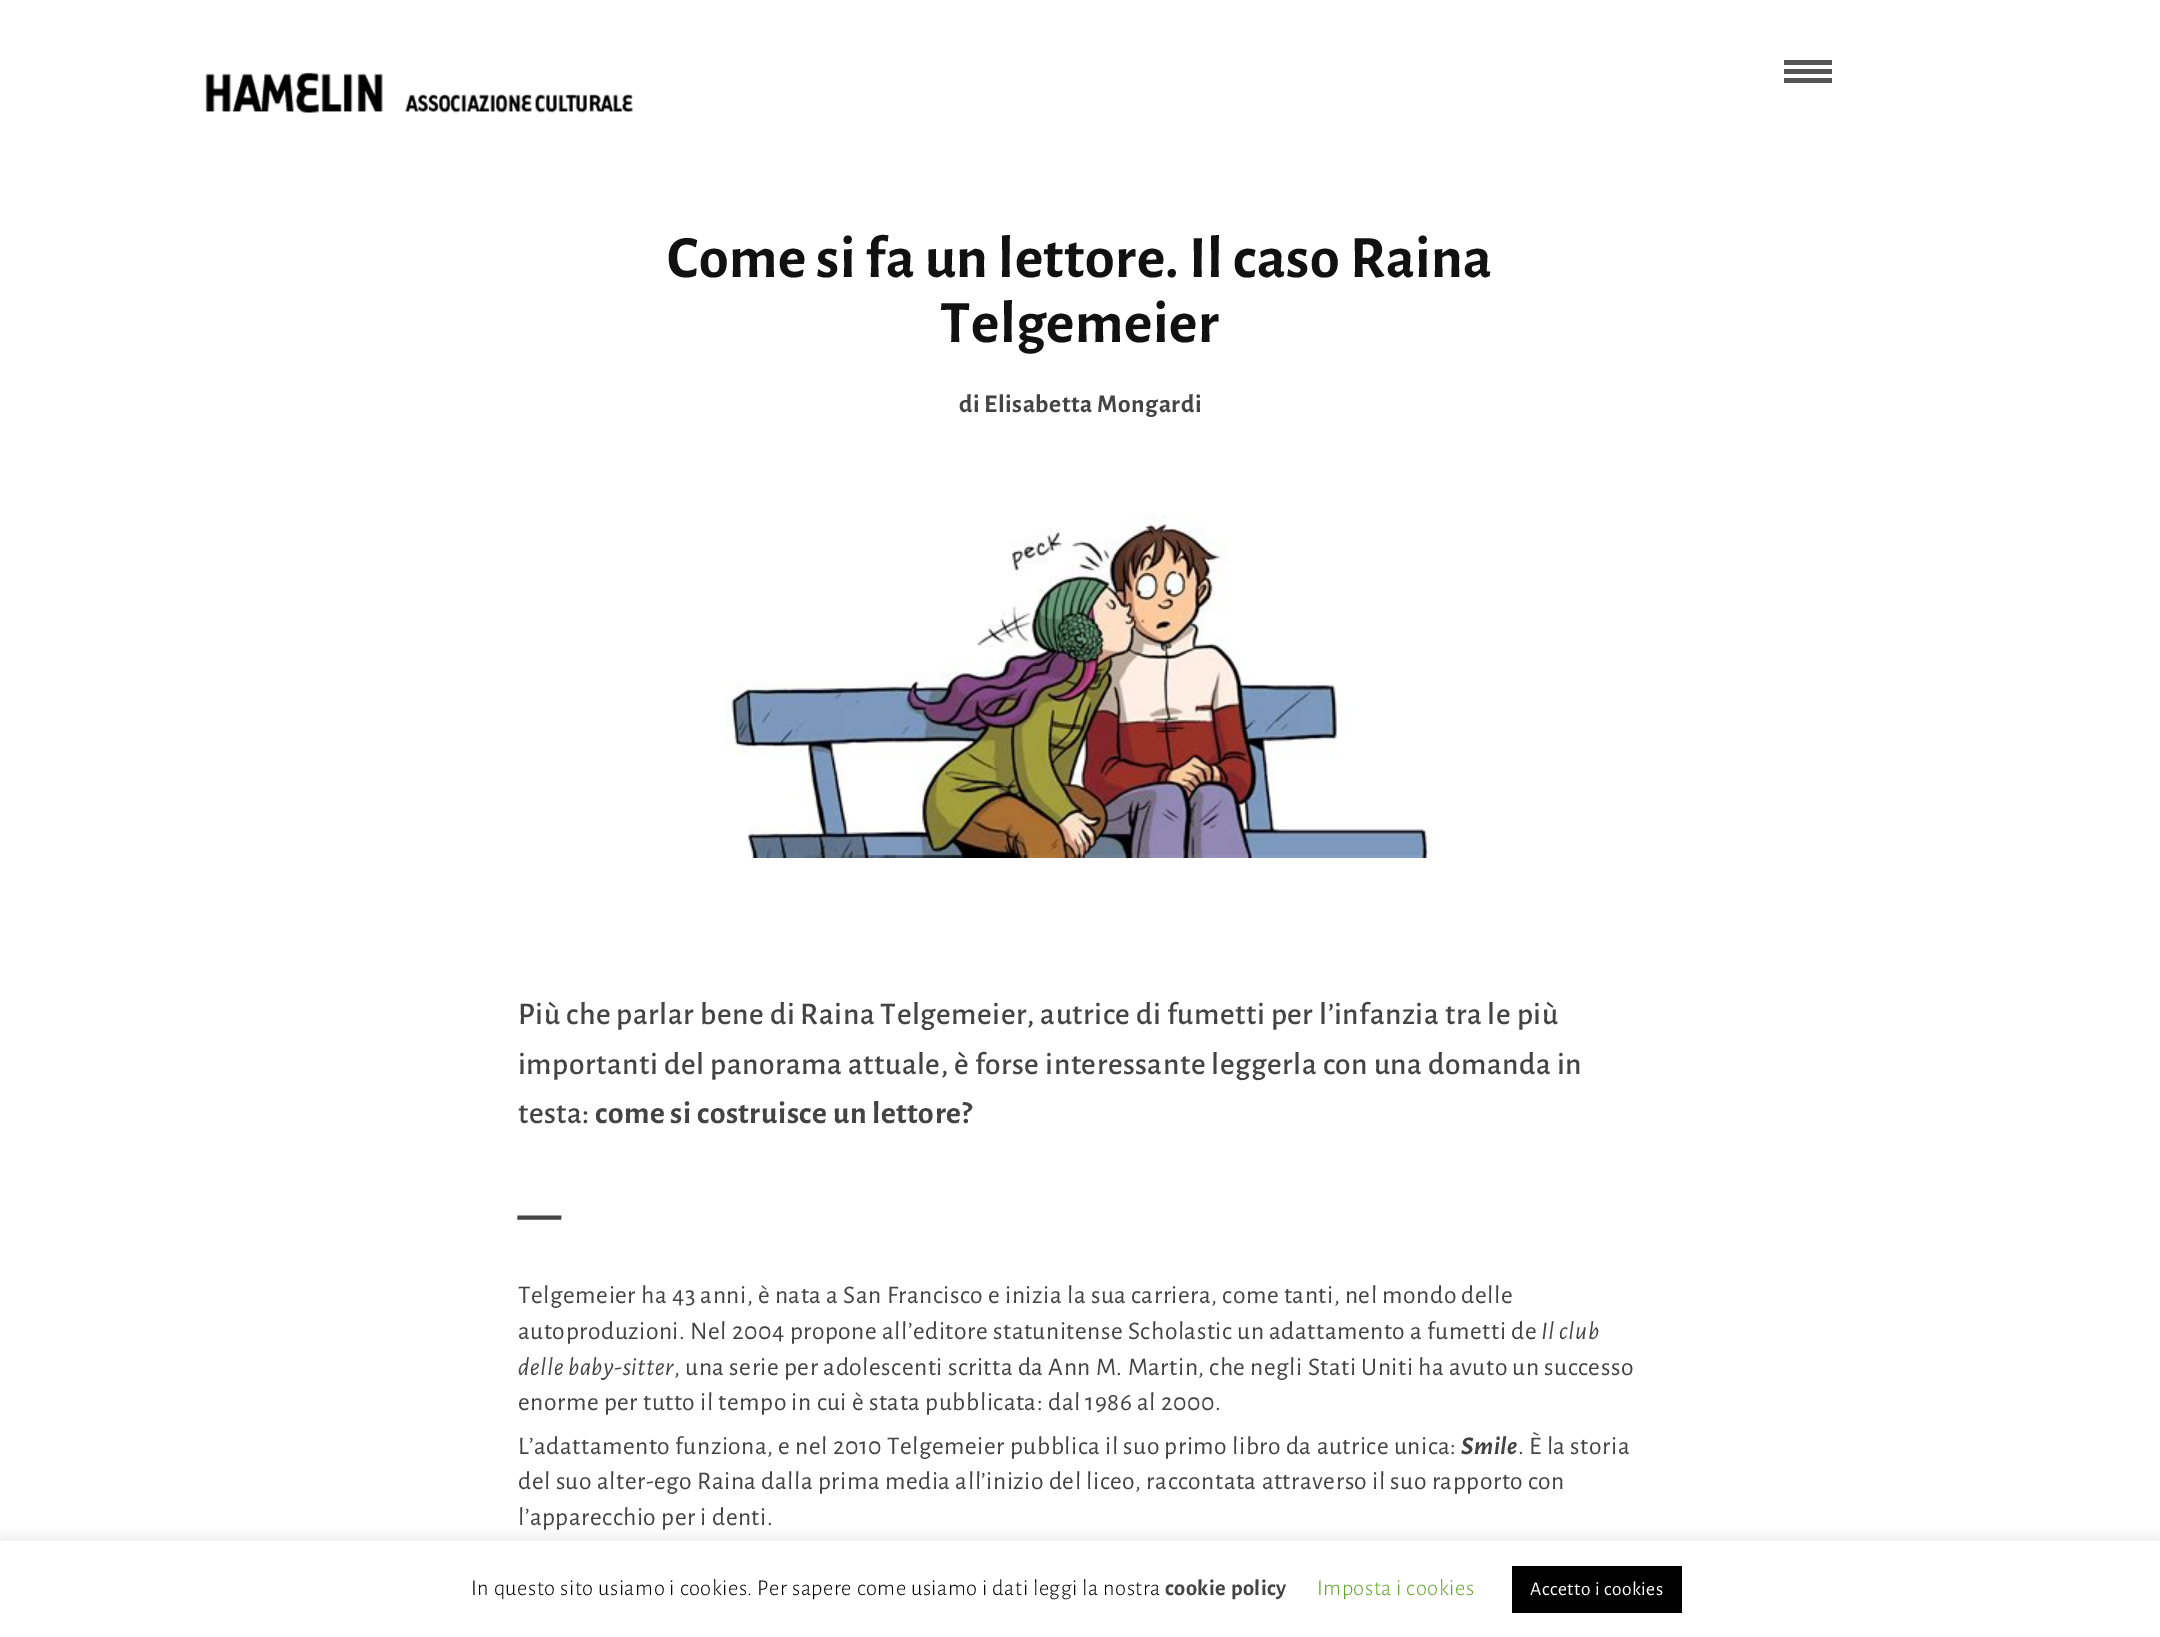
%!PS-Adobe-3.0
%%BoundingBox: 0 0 2160 1637
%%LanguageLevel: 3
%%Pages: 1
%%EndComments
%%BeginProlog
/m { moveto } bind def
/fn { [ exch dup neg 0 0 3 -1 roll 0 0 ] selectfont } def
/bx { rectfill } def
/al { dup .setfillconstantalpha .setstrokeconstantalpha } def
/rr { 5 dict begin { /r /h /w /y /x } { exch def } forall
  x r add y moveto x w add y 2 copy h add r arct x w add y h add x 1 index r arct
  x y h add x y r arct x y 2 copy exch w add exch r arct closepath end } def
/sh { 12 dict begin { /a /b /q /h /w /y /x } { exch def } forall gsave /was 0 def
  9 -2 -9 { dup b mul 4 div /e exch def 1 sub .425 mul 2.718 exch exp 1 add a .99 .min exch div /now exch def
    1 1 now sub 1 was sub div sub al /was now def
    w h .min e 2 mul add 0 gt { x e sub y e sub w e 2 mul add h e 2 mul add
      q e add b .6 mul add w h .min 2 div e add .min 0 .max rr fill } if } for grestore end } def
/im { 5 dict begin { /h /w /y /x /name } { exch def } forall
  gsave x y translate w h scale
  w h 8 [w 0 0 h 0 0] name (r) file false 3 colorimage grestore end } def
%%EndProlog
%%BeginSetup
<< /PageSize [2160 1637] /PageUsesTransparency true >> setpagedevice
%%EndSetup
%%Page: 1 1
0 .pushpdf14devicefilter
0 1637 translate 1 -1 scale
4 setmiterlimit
1 setgray
0 0 2160 1637 bx
(image0.raw) 205 72 428 41 im
0.333 setgray
1784 60 48 5 bx
1784 69 48 5 bx
1784 78 48 5 bx
/AlegreyaSans-Bold 60 fn
0.067 setgray
667 277 m 0.52 0 (Come si fa un lettore. Il caso Raina) ashow
940 342 m 0.52 0 (Telgemeier) ashow
/AlegreyaSans-Bold 25.5 fn
0.267 setgray
959 412 m 0.52 0 (di Elisabetta Mongardi) ashow
(image1.raw) 724 516 709 342 im
/AlegreyaSans-Medium 31.5 fn
518 1024 m 0.52 0 (Più che parlar bene di Raina Telgemeier, autrice di fumetti per l’infanzia tra le più) ashow
518 1074 m 0.52 0 (importanti del panorama attuale, è forse interessante leggerla con una domanda in) ashow
518 1123 m 0.52 0 (testa:) ashow
/AlegreyaSans-Bold 31.5 fn
595 1123 m 0.52 0 (come si costruisce un lettore?) ashow
/AlegreyaSans-Bold 48 fn
518 1230 m 0.52 0 (—) ashow
/AlegreyaSans-Regular 25.5 fn
518 1303 m 0.52 0 (Telgemeier ha 43 anni, è nata a San Francisco e inizia la sua carriera, come tanti, nel mondo delle) ashow
518 1339 m 0.52 0 (autoproduzioni. Nel 2004 propone all’editore statunitense Scholastic un adattamento a fumetti de) ashow
/AlegreyaSans-Italic 25.5 fn
1541 1339 m 0.52 0 (Il club) ashow
518 1375 m 0.52 0 (delle baby-sitter) ashow
/AlegreyaSans-Regular 25.5 fn
674 1375 m 0.52 0 (, una serie per adolescenti scritta da Ann M. Martin, che negli Stati Uniti ha avuto un successo) ashow
518 1410 m 0.52 0 (enorme per tutto il tempo in cui è stata pubblicata: dal 1986 al 2000.) ashow
518 1454 m 0.52 0 (L’adattamento funziona, e nel 2010 Telgemeier pubblica il suo primo libro da autrice unica:) ashow
/AlegreyaSans-BoldItalic 25.5 fn
1461 1454 m 0.52 0 (Smile) ashow
/AlegreyaSans-Regular 25.5 fn
1518 1454 m 0.52 0 (. È la storia) ashow
518 1489 m 0.52 0 (del suo alter-ego Raina dalla prima media all’inizio del liceo, raccontata attraverso il suo rapporto con) ashow
518 1525 m 0.52 0 (l’apparecchio per i denti.) ashow
0.675 0.671 0.671 setrgbcolor
0 1539 2160 98 0 7.5 0.3 sh
1 setgray
0 1541 2160 96 bx
/AlegreyaSans-Light 22.5 fn
0 setgray
471 1595 m 0.52 0 (In questo sito usiamo i cookies. Per sapere come usiamo i dati leggi la nostra) ashow
/AlegreyaSans-Bold 22.5 fn
0.267 setgray
1165 1595 m 0.52 0 (cookie policy) ashow
/AlegreyaSans-Light 22.5 fn
0.384 0.639 0.161 setrgbcolor
1317 1595 m 0.52 0 (Imposta i cookies) ashow
0 setgray
1512 1566 170 47 bx
/AlegreyaSans-Regular 19.5 fn
1 setgray
1530 1595 m 0.52 0 (Accetto i cookies) ashow
.poppdf14devicefilter showpage
%%EOF
